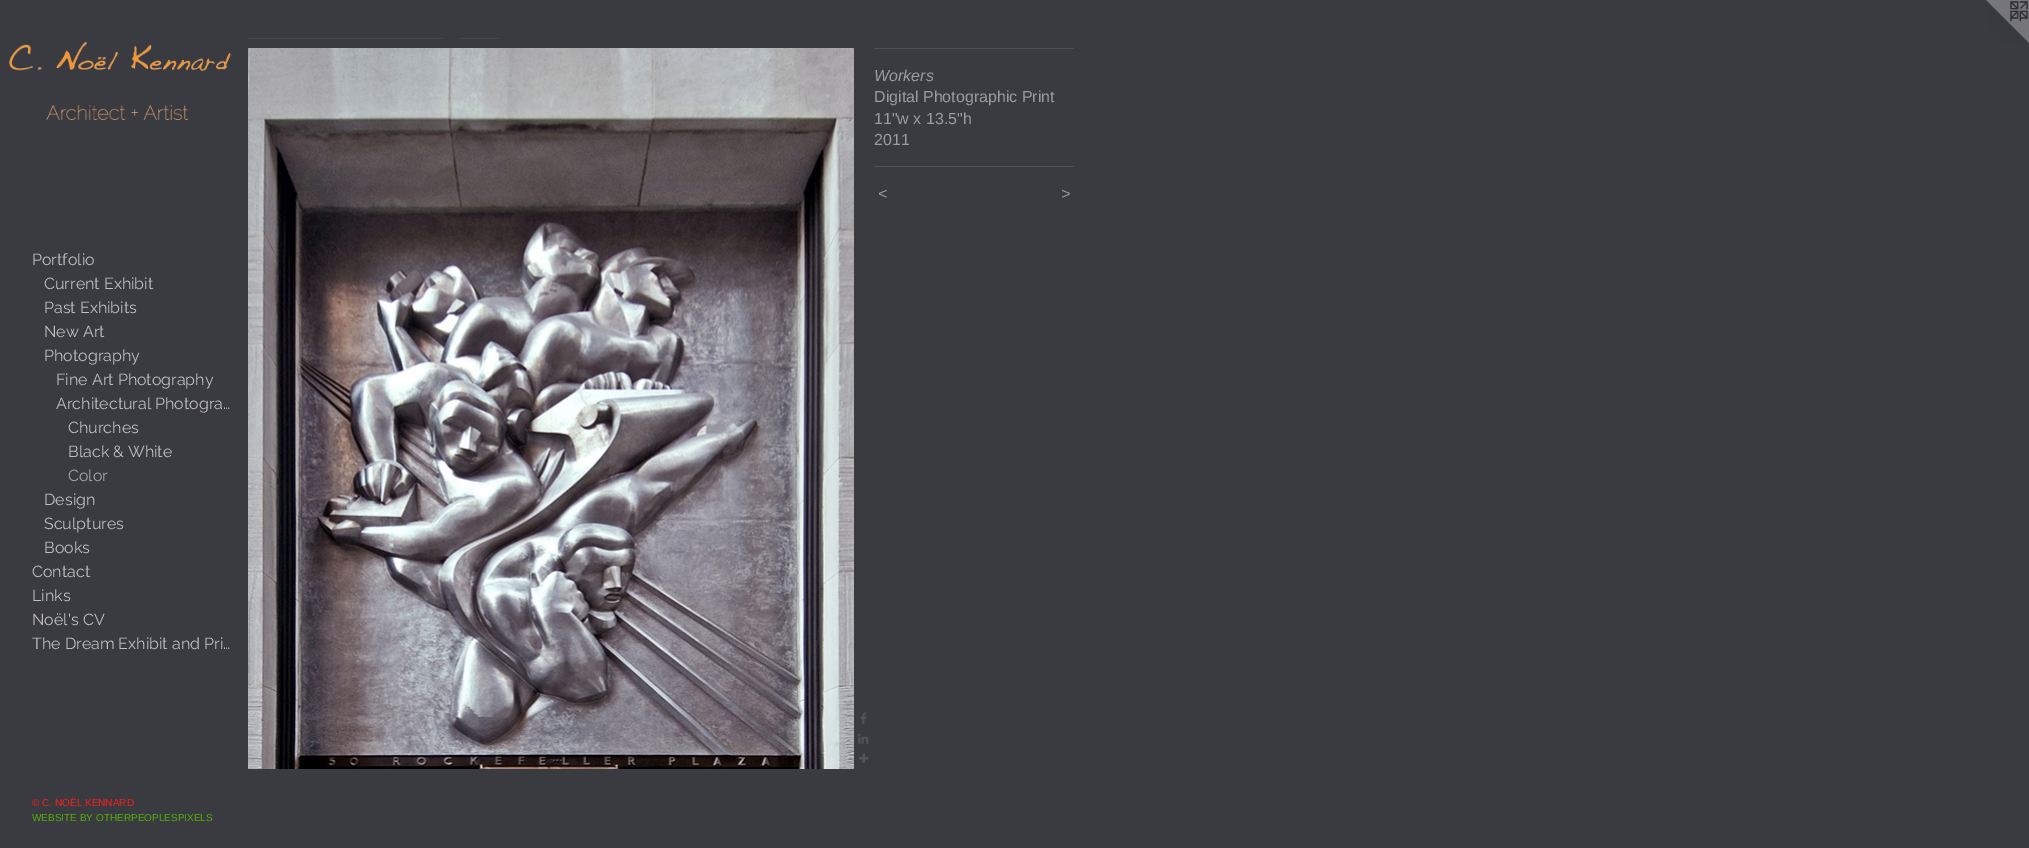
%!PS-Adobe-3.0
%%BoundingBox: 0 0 2029 848
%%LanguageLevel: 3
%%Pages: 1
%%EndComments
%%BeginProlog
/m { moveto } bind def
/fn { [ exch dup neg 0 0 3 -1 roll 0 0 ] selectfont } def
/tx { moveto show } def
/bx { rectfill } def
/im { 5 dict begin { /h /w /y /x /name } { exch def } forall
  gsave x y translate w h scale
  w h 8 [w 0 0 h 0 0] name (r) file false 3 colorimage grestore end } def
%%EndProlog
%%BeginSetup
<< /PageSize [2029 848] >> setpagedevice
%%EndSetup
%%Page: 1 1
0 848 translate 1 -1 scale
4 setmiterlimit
0.227 0.227 0.255 setrgbcolor
0 0 2029 848 bx
(image0.raw) 1986 0 43 43 im
0.294 0.267 0.267 setrgbcolor
248 38 195 1 bx
459 38 40 1 bx
(image1.raw) 248 48 606 721 im
(image2.raw) 860 712 7 12 im
(image3.raw) 858 733 11 11 im
(image4.raw) 859 753 10 10 im
0.306 0.306 0.325 setrgbcolor
874 48 200 1 bx
/LiberationSans-Italic 16 fn
0.612 setgray
(Workers) 874 81 tx
/LiberationSans-Regular 16 fn
(Digital Photographic Print) 874 102 tx
(11"w x 13.5"h) 874 124 tx
(2011) 874 145 tx
0.306 0.306 0.325 setrgbcolor
874 166 200 1 bx
/LiberationSans-Italic 16 fn
0.612 setgray
878 199 m 1 0 (<) ashow
1061 199 m 1 0 (>) ashow
(image5.raw) 8 41 223 79 im
/Raleway-Thin 16 fn
0.757 0.745 0.741 setrgbcolor
(Portfolio) 32 265 tx
(Current Exhibit) 44 289 tx
(Past Exhibits) 44 313 tx
(New Art) 44 337 tx
(Photography) 44 361 tx
(Fine Art Photography) 56 385 tx
(Architectural Photogra…) 56 409 tx
(Churches) 68 433 tx
(Black & White) 68 457 tx
0.659 0.643 0.639 setrgbcolor
(Color) 68 481 tx
0.757 0.745 0.741 setrgbcolor
(Design) 44 505 tx
(Sculptures) 44 529 tx
(Books) 44 553 tx
(Contact) 32 577 tx
(Links) 32 601 tx
(Noël's CV) 32 625 tx
(The Dream Exhibit and Pri…) 32 649 tx
/LiberationSans-Regular 10 fn
0.965 0.118 0.118 setrgbcolor
(© C. NOËL KENNARD) 32 806 tx
0.329 0.682 0.035 setrgbcolor
(WEBSITE BY OTHERPEOPLESPIXELS) 32 821 tx
showpage
%%EOF
